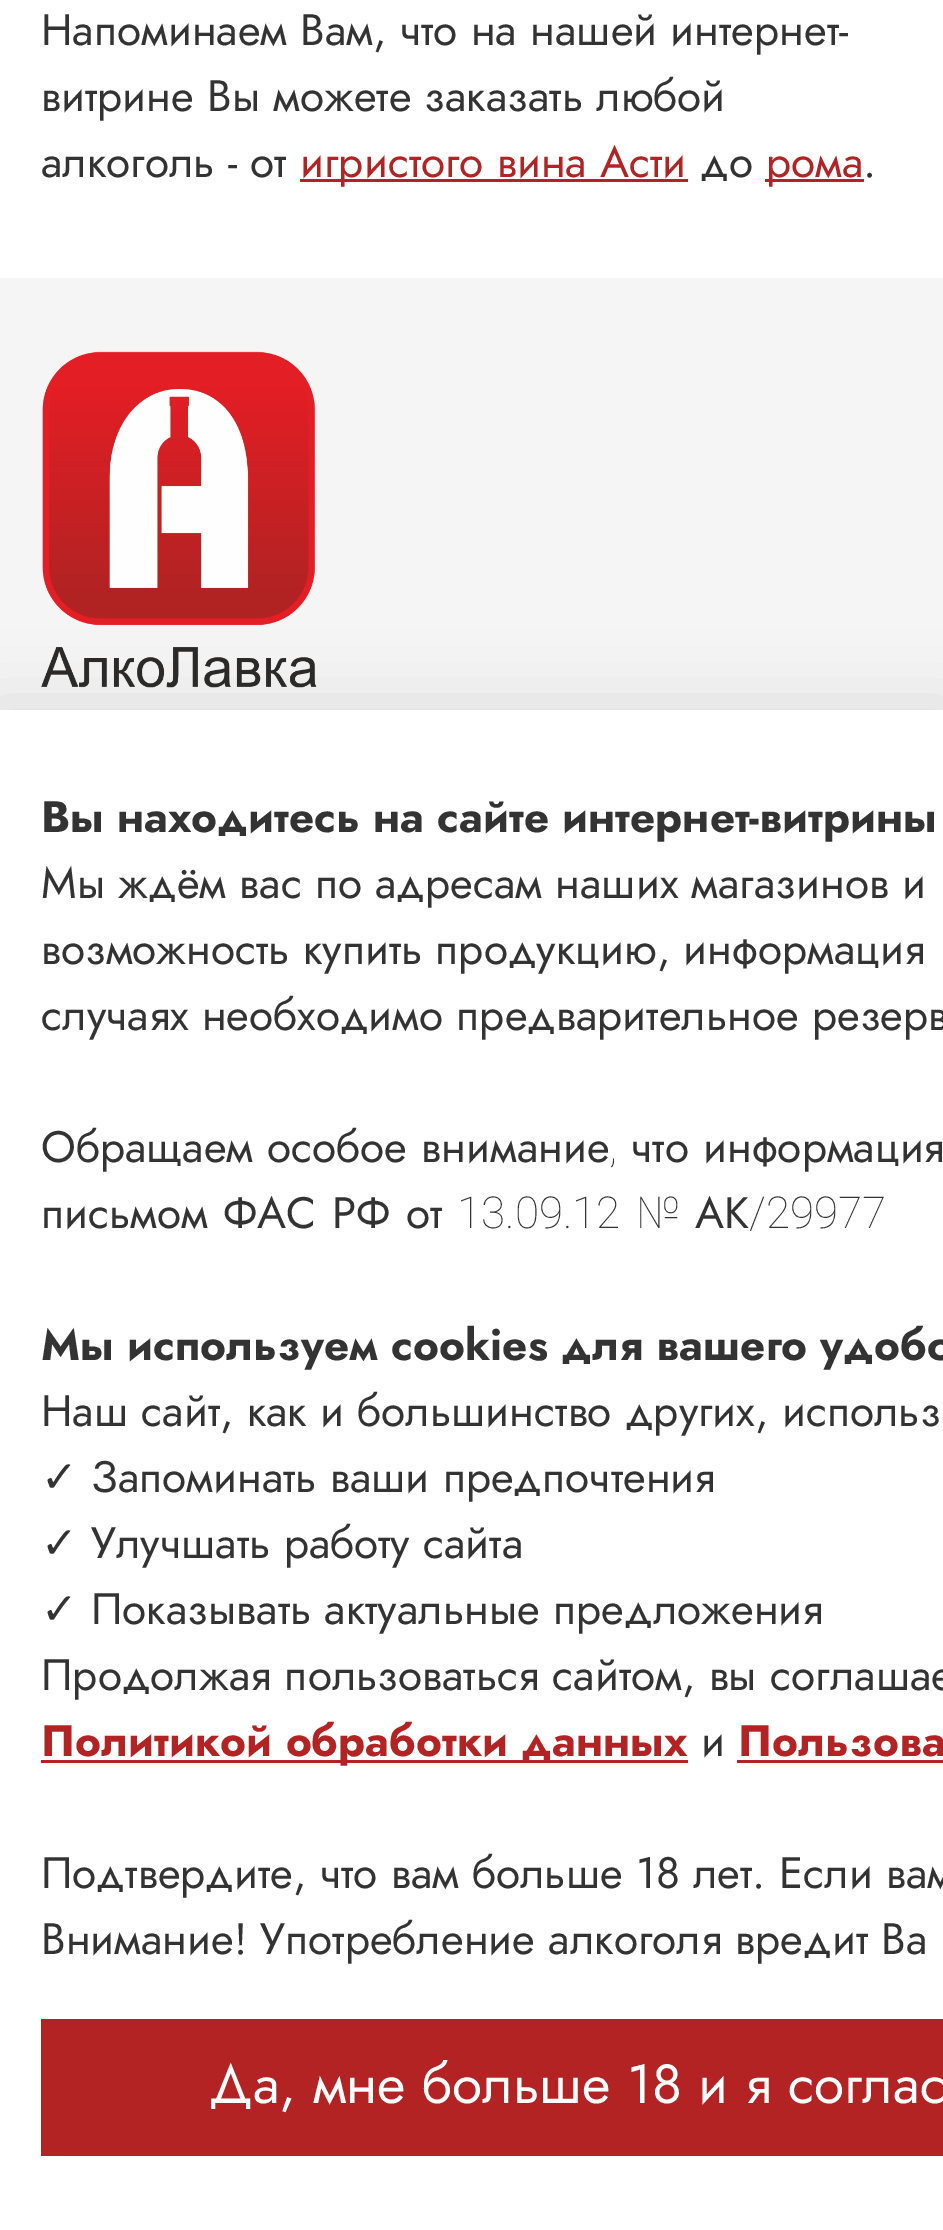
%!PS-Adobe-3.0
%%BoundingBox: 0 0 943 2230
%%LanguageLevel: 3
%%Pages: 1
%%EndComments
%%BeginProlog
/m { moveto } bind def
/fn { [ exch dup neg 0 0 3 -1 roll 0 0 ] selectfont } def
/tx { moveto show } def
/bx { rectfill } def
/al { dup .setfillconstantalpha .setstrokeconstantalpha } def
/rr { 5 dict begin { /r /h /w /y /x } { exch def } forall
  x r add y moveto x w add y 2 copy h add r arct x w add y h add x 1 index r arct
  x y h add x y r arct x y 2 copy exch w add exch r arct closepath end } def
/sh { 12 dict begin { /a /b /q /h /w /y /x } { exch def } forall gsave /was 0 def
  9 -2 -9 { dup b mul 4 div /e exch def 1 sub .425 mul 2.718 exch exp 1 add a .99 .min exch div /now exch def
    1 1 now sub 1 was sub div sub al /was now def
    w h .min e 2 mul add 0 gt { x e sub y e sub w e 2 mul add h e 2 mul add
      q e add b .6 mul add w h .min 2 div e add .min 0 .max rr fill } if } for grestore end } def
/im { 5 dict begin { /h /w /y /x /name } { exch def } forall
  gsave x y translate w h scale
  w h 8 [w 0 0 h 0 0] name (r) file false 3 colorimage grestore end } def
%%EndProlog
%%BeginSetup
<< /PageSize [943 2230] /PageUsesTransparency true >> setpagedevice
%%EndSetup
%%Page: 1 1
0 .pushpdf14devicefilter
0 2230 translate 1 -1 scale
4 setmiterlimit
1 setgray
0 0 943 2230 bx
/Jost-Regular 44 fn
0.2 setgray
(Напоминаем Вам, что на нашей интернет-) 41 45 tx
(витрине Вы можете заказать любой) 41 111 tx
(алкоголь - от) 41 177 tx
0.702 0.137 0.141 setrgbcolor
300 179 388 3 bx
(игристого вина Асти) 300 177 tx
0.2 setgray
(до) 700 177 tx
0.702 0.137 0.141 setrgbcolor
765 179 99 3 bx
(рома) 766 177 tx
0.2 setgray
(.) 863 177 tx
0.961 0.961 0.965 setrgbcolor
0 278 943 432 bx
(image0.raw) 41 351 276 337 im
0 setgray
-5 701 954 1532 0 31.5 0.09 sh
1 setgray
0 710 943 1520 bx
/Jost-Bold 44 fn
0.2 setgray
(Вы находитесь на сайте интернет-витрины) 41 832 tx
/Jost-Regular 44 fn
(Мы ждём вас по адресам наших магазинов и) 41 898 tx
(возможность купить продукцию, информация) 41 964 tx
(случаях необходимо предварительное резерв) 41 1030 tx
41 1162 m 1 0 32 (Обращаем особое внимание) widthshow
/Roboto-Thin 44 fn
(,) 609 1162 tx
/Jost-Regular 44 fn
631 1162 m 1 0 32 (что информация) widthshow
41 1228 m 2 0 32 (письмом ФАС РФ от) widthshow
/Roboto-Thin 44 fn
(13.09.12) 457 1228 tx
(№) 636 1228 tx
/Jost-Regular 44 fn
(АК) 695 1228 tx
/Roboto-Thin 44 fn
(/29977) 749 1228 tx
/Jost-Bold 44 fn
(Мы используем cookies для вашего удобс) 41 1360 tx
/Jost-Regular 44 fn
(Наш сайт, как и большинство других, использ) 41 1426 tx
/DejaVuSans-Regular 44 fn
(✓) 41 1492 tx
/Jost-Regular 44 fn
(Запоминать ваши предпочтения) 91 1492 tx
/DejaVuSans-Regular 44 fn
(✓) 41 1558 tx
/Jost-Regular 44 fn
(Улучшать работу сайта) 91 1558 tx
/DejaVuSans-Regular 44 fn
(✓) 41 1624 tx
/Jost-Regular 44 fn
(Показывать актуальные предложения) 91 1624 tx
(Продолжая пользоваться сайтом, вы соглашае) 41 1690 tx
0.702 0.137 0.141 setrgbcolor
41 1760 647 3 bx
/Jost-Bold 44 fn
(Политикой обработки данных) 41 1756 tx
/Jost-Regular 44 fn
0.2 setgray
(и) 701 1756 tx
/Jost-Bold 44 fn
0.702 0.137 0.141 setrgbcolor
(Пользова) 738 1756 tx
737 1760 206 3 bx
/Jost-Regular 44 fn
0.2 setgray
(Подтвердите, что вам больше 18 лет. Если вам) 41 1888 tx
(Внимание! Употребление алкоголя вредит Ва) 41 1954 tx
0.702 0.137 0.141 setrgbcolor
41 2019 902 137 bx
/Jost-Regular 55 fn
1 setgray
(Да, мне больше 18 и я соглас) 209 2103 tx
.poppdf14devicefilter showpage
%%EOF
